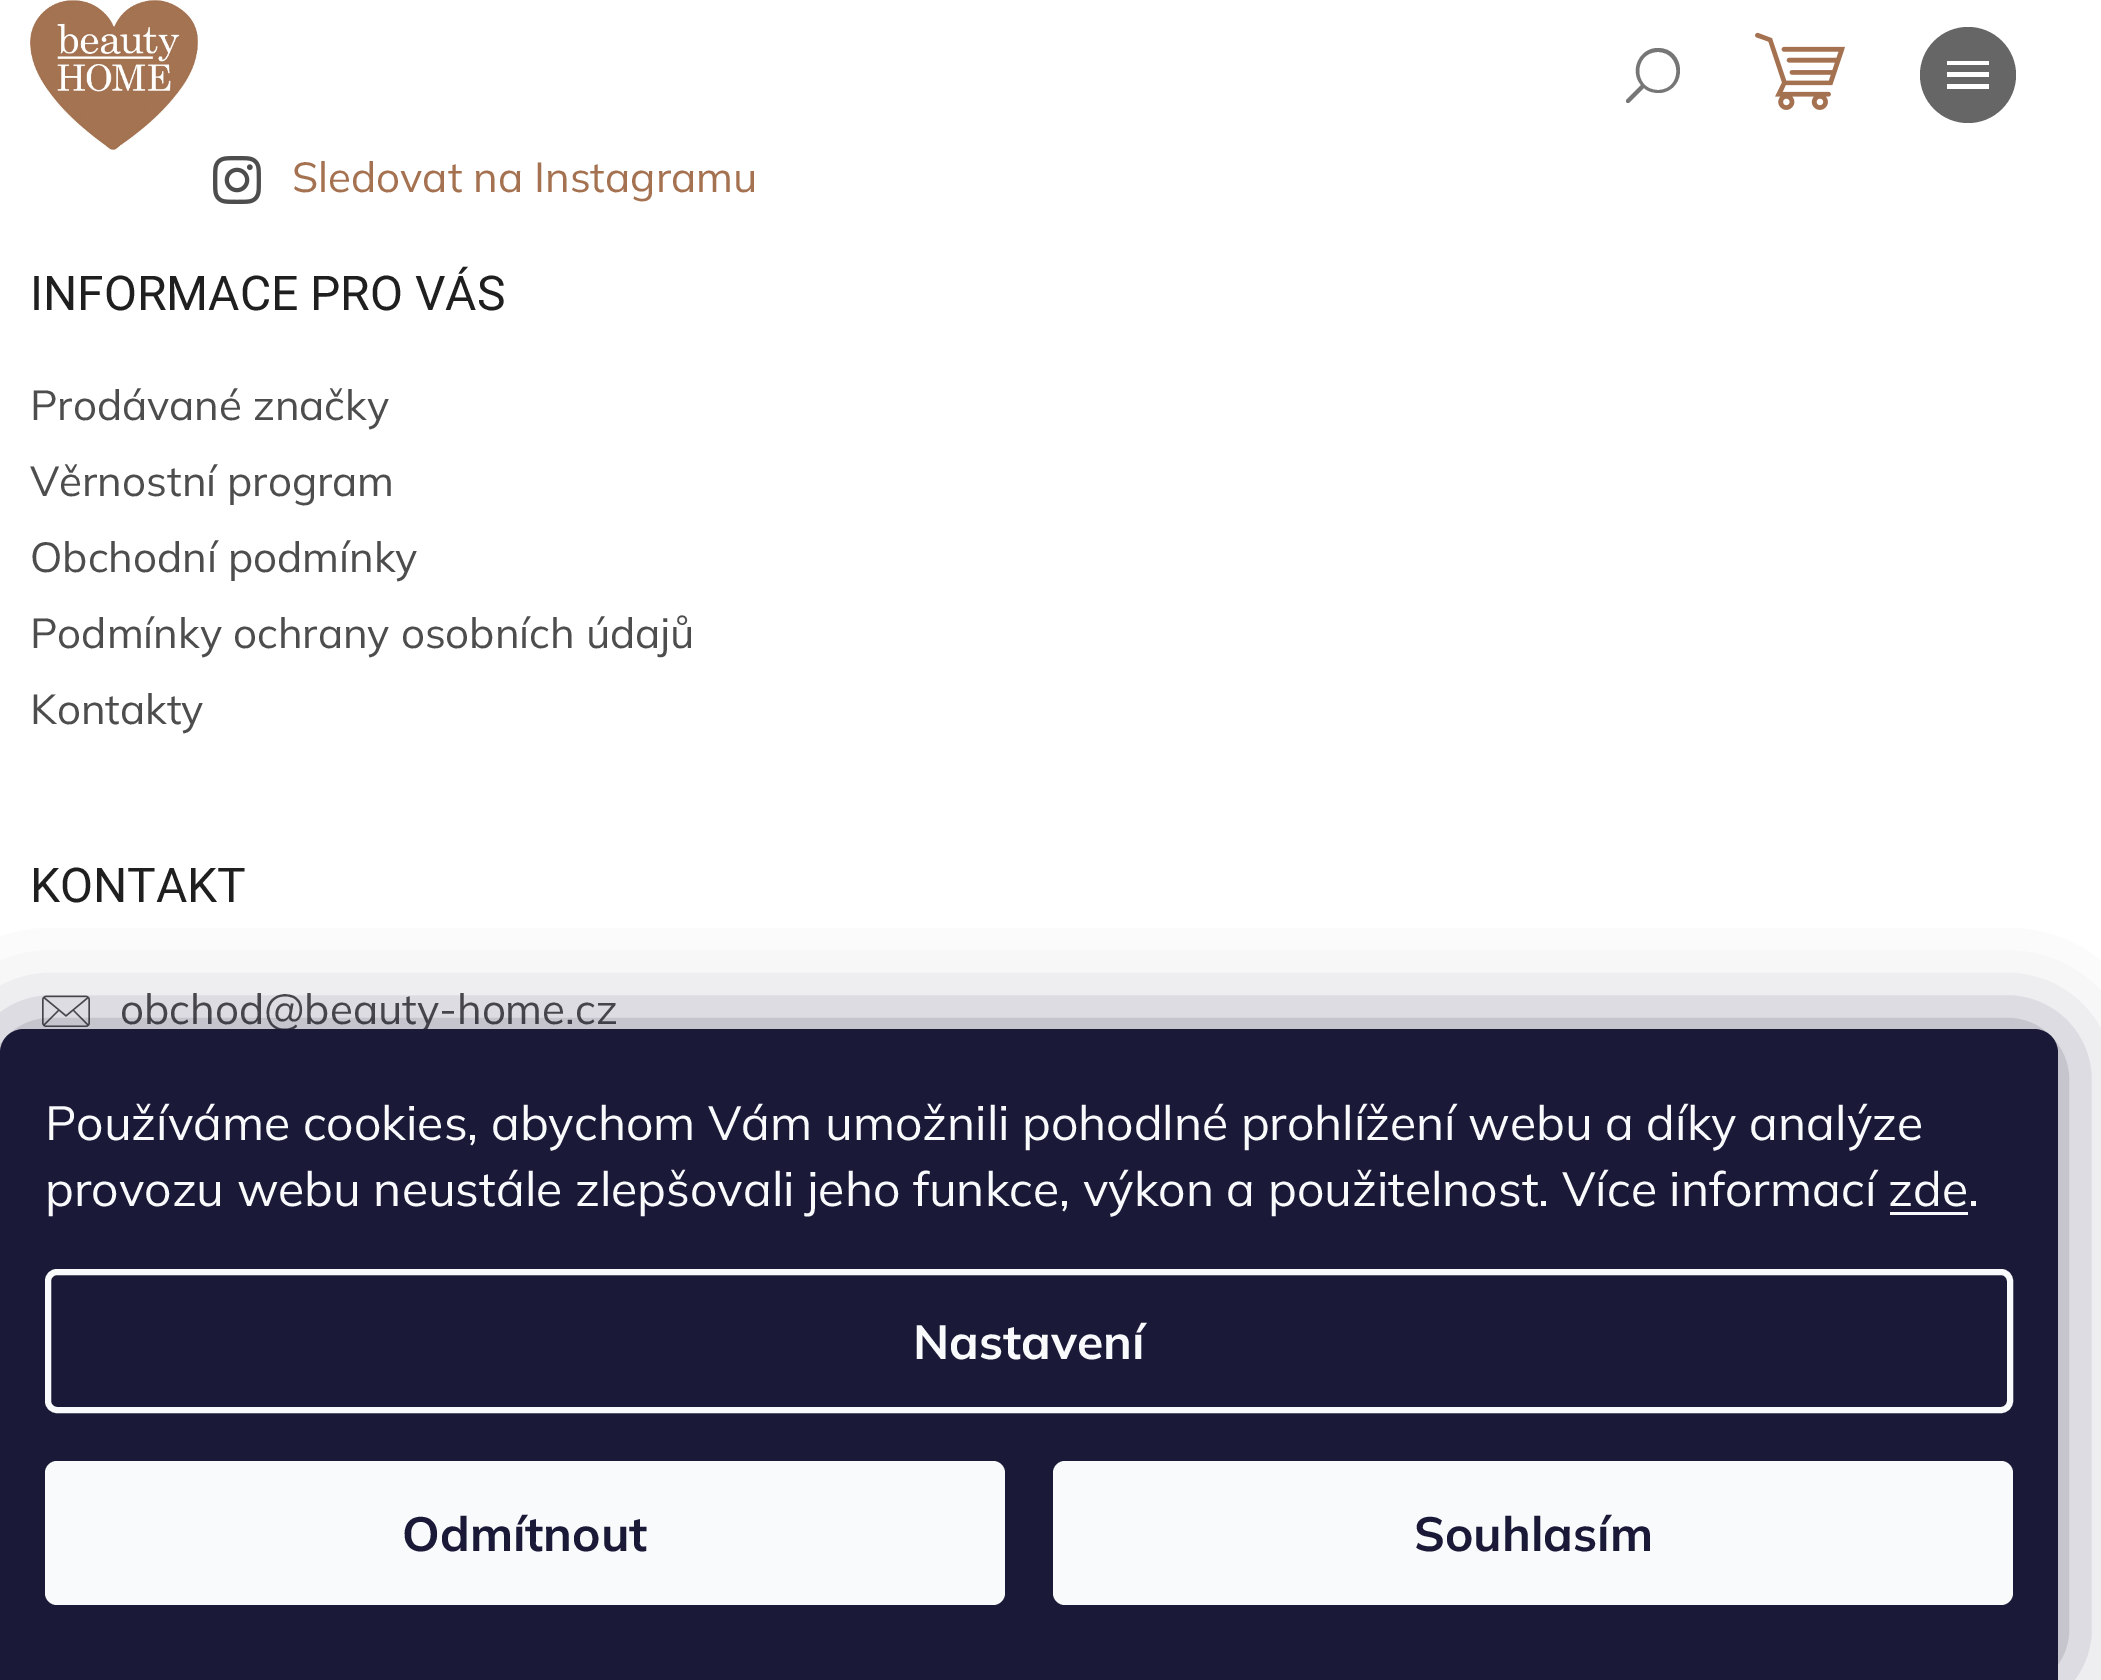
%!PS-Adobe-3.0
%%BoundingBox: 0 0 2101 1680
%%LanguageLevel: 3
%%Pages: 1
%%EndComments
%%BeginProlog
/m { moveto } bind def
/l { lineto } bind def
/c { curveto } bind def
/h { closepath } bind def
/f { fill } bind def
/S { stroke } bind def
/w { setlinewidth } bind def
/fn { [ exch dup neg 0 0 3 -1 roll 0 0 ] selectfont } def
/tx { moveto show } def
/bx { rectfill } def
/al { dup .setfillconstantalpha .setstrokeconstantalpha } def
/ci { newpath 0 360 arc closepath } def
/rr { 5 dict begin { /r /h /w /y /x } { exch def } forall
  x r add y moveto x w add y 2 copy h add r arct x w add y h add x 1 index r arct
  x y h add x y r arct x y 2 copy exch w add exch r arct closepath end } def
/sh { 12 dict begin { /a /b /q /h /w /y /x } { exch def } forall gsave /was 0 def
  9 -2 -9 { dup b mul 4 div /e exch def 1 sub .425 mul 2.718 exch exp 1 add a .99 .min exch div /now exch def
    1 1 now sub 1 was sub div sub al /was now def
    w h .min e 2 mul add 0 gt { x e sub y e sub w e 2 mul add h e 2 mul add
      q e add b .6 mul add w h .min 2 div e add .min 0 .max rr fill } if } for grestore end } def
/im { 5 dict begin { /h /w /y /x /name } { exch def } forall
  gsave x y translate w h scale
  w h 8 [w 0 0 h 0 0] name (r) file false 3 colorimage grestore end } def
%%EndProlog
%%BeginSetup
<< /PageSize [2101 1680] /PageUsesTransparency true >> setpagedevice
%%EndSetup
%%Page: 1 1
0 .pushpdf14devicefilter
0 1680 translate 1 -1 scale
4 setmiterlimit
1 setgray
0 0 2101 1680 bx
(image0.raw) 30 0 168 150 im
(image1.raw) 1755 32 90 78 im
0.463 setgray
1658 48 m 1639 48 1629 71 1641 85 c 1626 100 l 1626 101 1626 103 1628 103 c 1629 103 l 1644 88 l 1648 92 1654 93 1660 93 c 1688 90 1686 48 1658 48 c h 1658 52 m 1682 52 1683 90 1658 90 c 1633 90 1633 52 1658 52 c h f
0.4 setgray
1968 75 48 ci f
1 setgray
1947 89 m 1989 89 l 1989 84 l 1947 84 l h 1947 77 m 1989 77 l 1989 72 l 1947 72 l h 1947 61 m 1947 65 l 1989 65 l 1989 61 l h f
(image2.raw) 213 156 48 48 im
/Mulish-Regular 42 fn
0.647 0.447 0.318 setrgbcolor
(Sledovat na Instagramu) 292 192 tx
/Roboto-Regular 48 fn
0.122 setgray
(INFORMACE PRO VÁS) 30 310 tx
/Mulish-Regular 42 fn
0.302 setgray
(Prodávané značky) 30 420 tx
(Věrnostní program) 30 496 tx
(Obchodní podmínky) 30 572 tx
(Podmínky ochrany osobních údajů) 30 648 tx
(Kontakty) 30 724 tx
/Roboto-Regular 48 fn
0.122 setgray
(KONTAKT) 30 902 tx
(image3.raw) 42 995 48 32 im
/Mulish-Regular 42 fn
0.302 setgray
(obchod@beauty-home.cz) 120 1024 tx
0.106 0.098 0.224 setrgbcolor
0 1029 2058 651 24 45 0.5 sh
0.102 0.098 0.216 setrgbcolor
24 1029 m 2034 1029 l 2047.5 1029 2058 1039.5 2058 1053 c 2058 1680 l 0 1680 l 0 1053 l 0 1039.5 10.5 1029 24 1029 c h f
/Mulish-Regular 48 fn
0.973 0.98 0.984 setrgbcolor
(Používáme cookies, abychom Vám umožnili pohodlné prohlížení webu a díky analýze) 45 1140 tx
(provozu webu neustále zlepšovali jeho funkce, výkon a použitelnost. Více informací zde.) 45 1206 tx
1890 1212 78 3 bx
6 w
48 1272 1962 138 9 rr S
/Mulish-Bold 48 fn
(Nastavení) 913 1359 tx
45 1461 960 144 12 rr f
0.102 0.098 0.216 setrgbcolor
(Odmítnout) 402 1551 tx
0.973 0.98 0.984 setrgbcolor
1053 1461 960 144 12 rr f
0.102 0.098 0.216 setrgbcolor
(Souhlasím) 1414 1551 tx
.poppdf14devicefilter showpage
%%EOF
